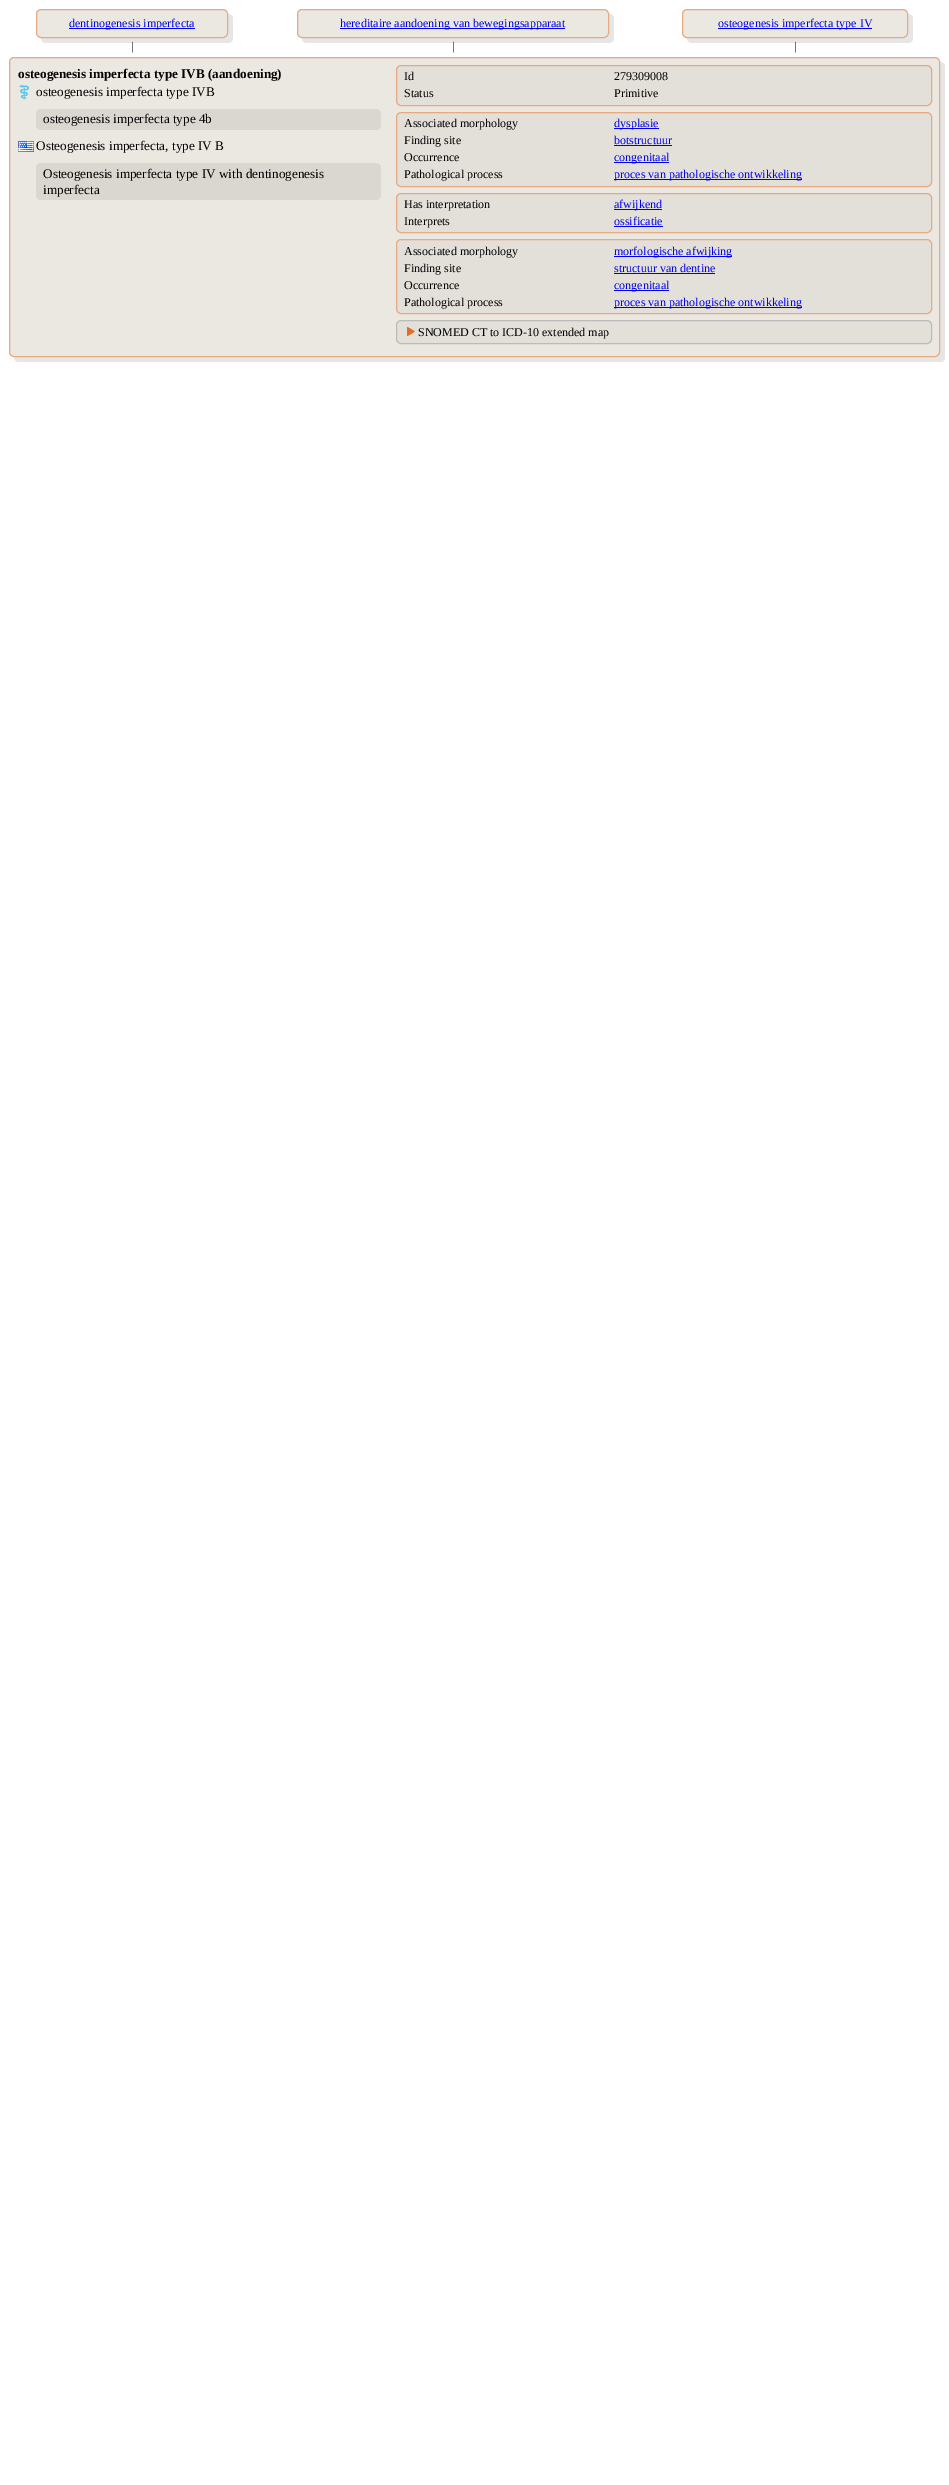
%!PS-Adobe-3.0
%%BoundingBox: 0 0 949 2485
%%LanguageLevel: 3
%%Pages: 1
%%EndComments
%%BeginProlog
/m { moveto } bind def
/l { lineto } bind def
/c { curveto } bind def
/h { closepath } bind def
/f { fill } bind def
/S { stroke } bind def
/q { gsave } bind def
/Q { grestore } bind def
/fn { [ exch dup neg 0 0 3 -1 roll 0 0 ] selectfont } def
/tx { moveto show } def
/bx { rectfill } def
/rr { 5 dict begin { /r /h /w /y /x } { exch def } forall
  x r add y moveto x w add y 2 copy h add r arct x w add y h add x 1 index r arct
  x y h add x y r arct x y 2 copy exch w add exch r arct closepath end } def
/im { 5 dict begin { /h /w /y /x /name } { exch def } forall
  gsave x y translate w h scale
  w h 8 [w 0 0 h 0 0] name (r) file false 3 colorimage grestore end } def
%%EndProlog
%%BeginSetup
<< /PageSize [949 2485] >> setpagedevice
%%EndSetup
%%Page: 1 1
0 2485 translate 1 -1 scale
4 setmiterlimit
1 setgray
0 0 949 2485 bx
0.902 setgray
41 38 m 41 41 43 43 46 43 c 228 43 l 231 43 233 41 233 38 c 233 19 l 233 16 231 14 228 14 c 228 33 l 228 36 226 38 223 38 c h f
0.922 0.906 0.882 setrgbcolor
36.5 9.5 191 28 4.5 rr q f Q
0.902 0.667 0.514 setrgbcolor
S
0 0 0.933 setrgbcolor
69 28 126 1 bx
/LiberationSerif-Regular 12 fn
(dentinogenesis imperfecta) 69 27 tx
0.902 setgray
302 38 m 302 41 304 43 307 43 c 609 43 l 612 43 614 41 614 38 c 614 19 l 614 16 612 14 609 14 c 609 33 l 609 36 607 38 604 38 c h f
0.922 0.906 0.882 setrgbcolor
297.5 9.5 311 28 4.5 rr q f Q
0.902 0.667 0.514 setrgbcolor
S
0 0 0.933 setrgbcolor
340 28 225 1 bx
(hereditaire aandoening van bewegingsapparaat) 340 27 tx
0.902 setgray
687 38 m 687 41 689 43 692 43 c 908 43 l 911 43 913 41 913 38 c 913 19 l 913 16 911 14 908 14 c 908 33 l 908 36 906 38 903 38 c h f
0.922 0.906 0.882 setrgbcolor
682.5 9.5 225 28 4.5 rr q f Q
0.902 0.667 0.514 setrgbcolor
S
0 0 0.933 setrgbcolor
718 28 154 1 bx
(osteogenesis imperfecta type IV) 718 27 tx
0 setgray
(|) 131 50 tx
(|) 452 50 tx
(|) 794 50 tx
0.902 setgray
14 357 m 14 360 16 362 19 362 c 940 362 l 943 362 945 360 945 357 c 945 67 l 945 64 943 62 940 62 c 940 352 l 940 355 938 357 935 357 c h f
0.922 0.906 0.882 setrgbcolor
9.5 57.5 930 299 4.5 rr q f Q
0.902 0.667 0.514 setrgbcolor
S
/LiberationSerif-Bold 13.2 fn
0 setgray
(osteogenesis imperfecta type IVB \(aandoening\)) 18 78 tx
(image0.raw) 19 85 10 15 im
/LiberationSerif-Regular 13.2 fn
(osteogenesis imperfecta type IVB) 36 96 tx
0.855 0.839 0.816 setrgbcolor
36 109 345 21 5 rr f
0 setgray
(osteogenesis imperfecta type 4b) 43 123 tx
(image1.raw) 18 141 16 11 im
(Osteogenesis imperfecta, type IV B) 36 150 tx
0.855 0.839 0.816 setrgbcolor
36 163 345 37 5 rr f
0 setgray
(Osteogenesis imperfecta type IV with dentinogenesis) 43 178 tx
(imperfecta) 43 194 tx
0.89 0.875 0.851 setrgbcolor
396.5 65.5 535 40 4.5 rr q f Q
0.902 0.667 0.514 setrgbcolor
S
/LiberationSerif-Regular 12 fn
0 setgray
(Id) 404 80 tx
(279309008) 614 80 tx
(Status) 404 97 tx
(Primitive) 614 97 tx
0.89 0.875 0.851 setrgbcolor
396.5 112.5 535 74 4.5 rr q f Q
0.902 0.667 0.514 setrgbcolor
S
0 setgray
(Associated morphology) 404 127 tx
0 0 0.933 setrgbcolor
614 128 45 1 bx
(dysplasie) 614 127 tx
0 setgray
(Finding site) 404 144 tx
0 0 0.933 setrgbcolor
(botstructuur) 614 144 tx
614 145 58 1 bx
0 setgray
(Occurrence) 404 161 tx
0 0 0.933 setrgbcolor
614 162 55 1 bx
(congenitaal) 614 161 tx
0 setgray
(Pathological process) 404 178 tx
0 0 0.933 setrgbcolor
614 179 188 1 bx
(proces van pathologische ontwikkeling) 614 178 tx
0.89 0.875 0.851 setrgbcolor
396.5 193.5 535 39 4.5 rr q f Q
0.902 0.667 0.514 setrgbcolor
S
0 setgray
(Has interpretation) 404 208 tx
0 0 0.933 setrgbcolor
614 209 48 1 bx
(afwijkend) 614 208 tx
0 setgray
(Interprets) 404 225 tx
0 0 0.933 setrgbcolor
(ossificatie) 614 225 tx
614 226 49 1 bx
0.89 0.875 0.851 setrgbcolor
396.5 239.5 535 74 4.5 rr q f Q
0.902 0.667 0.514 setrgbcolor
S
0 setgray
(Associated morphology) 404 255 tx
0 0 0.933 setrgbcolor
614 256 118 1 bx
(morfologische afwijking) 614 255 tx
0 setgray
(Finding site) 404 272 tx
0 0 0.933 setrgbcolor
(structuur van dentine) 614 272 tx
614 273 101 1 bx
0 setgray
(Occurrence) 404 289 tx
0 0 0.933 setrgbcolor
614 290 55 1 bx
(congenitaal) 614 289 tx
0 setgray
(Pathological process) 404 306 tx
0 0 0.933 setrgbcolor
614 307 188 1 bx
(proces van pathologische ontwikkeling) 614 306 tx
0.89 0.875 0.851 setrgbcolor
396.5 320.5 535 23 4.5 rr q f Q
0.733 setgray
S
(image2.raw) 407 327 8 9 im
0 setgray
(SNOMED CT to ICD-10 extended map) 418 336 tx
showpage
%%EOF
